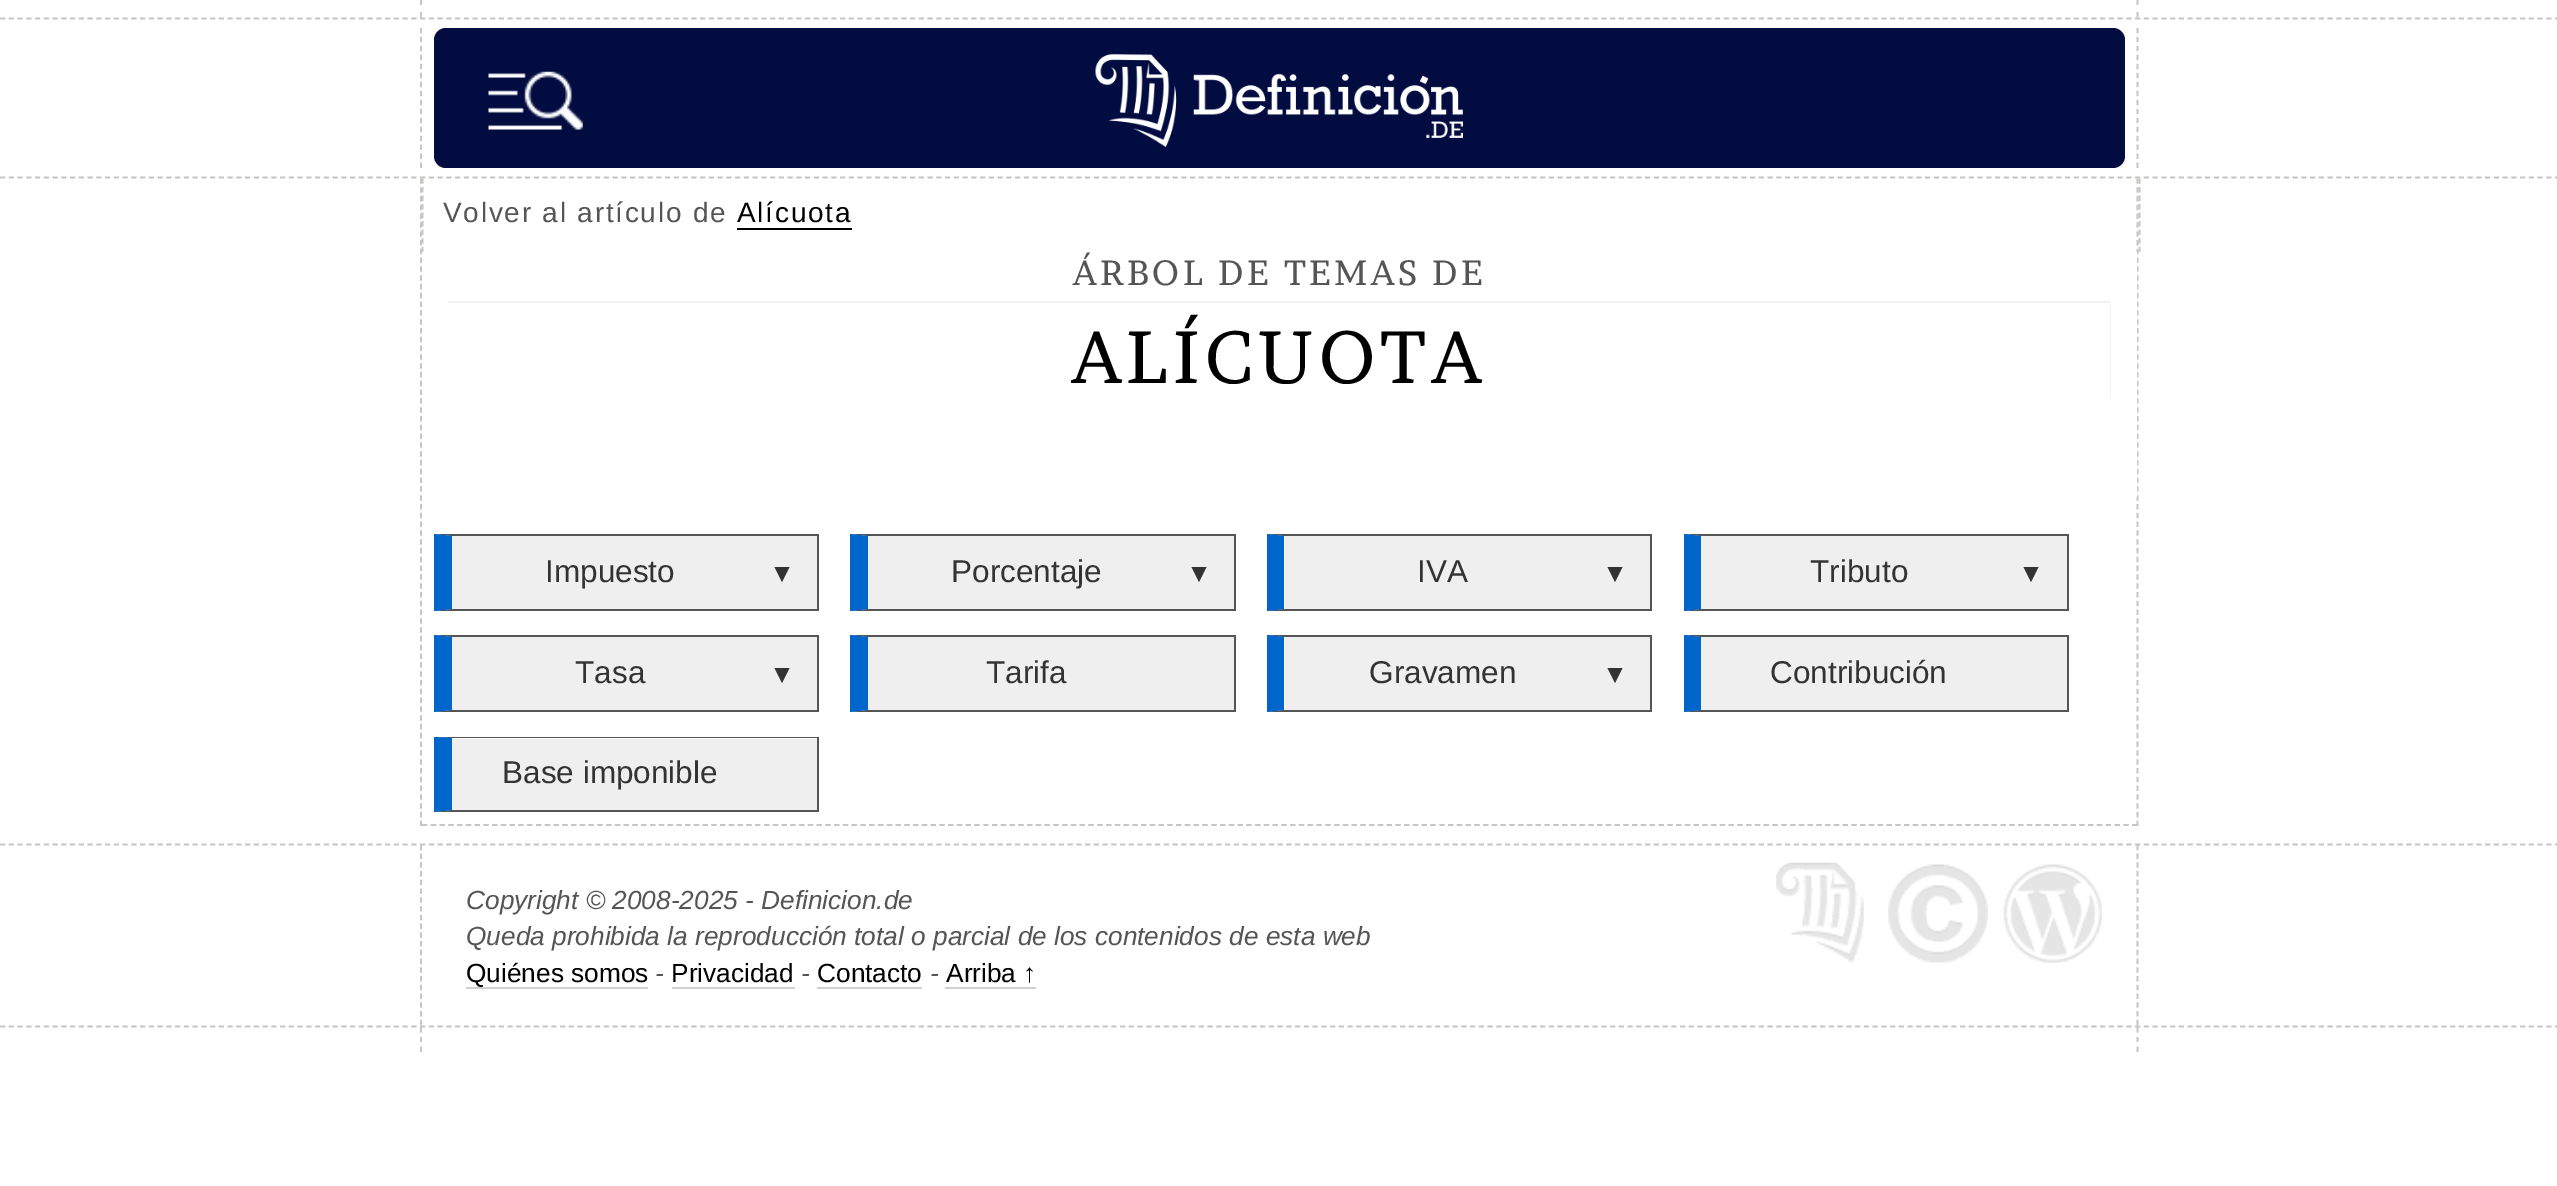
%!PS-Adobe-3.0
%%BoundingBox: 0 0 2557 1186
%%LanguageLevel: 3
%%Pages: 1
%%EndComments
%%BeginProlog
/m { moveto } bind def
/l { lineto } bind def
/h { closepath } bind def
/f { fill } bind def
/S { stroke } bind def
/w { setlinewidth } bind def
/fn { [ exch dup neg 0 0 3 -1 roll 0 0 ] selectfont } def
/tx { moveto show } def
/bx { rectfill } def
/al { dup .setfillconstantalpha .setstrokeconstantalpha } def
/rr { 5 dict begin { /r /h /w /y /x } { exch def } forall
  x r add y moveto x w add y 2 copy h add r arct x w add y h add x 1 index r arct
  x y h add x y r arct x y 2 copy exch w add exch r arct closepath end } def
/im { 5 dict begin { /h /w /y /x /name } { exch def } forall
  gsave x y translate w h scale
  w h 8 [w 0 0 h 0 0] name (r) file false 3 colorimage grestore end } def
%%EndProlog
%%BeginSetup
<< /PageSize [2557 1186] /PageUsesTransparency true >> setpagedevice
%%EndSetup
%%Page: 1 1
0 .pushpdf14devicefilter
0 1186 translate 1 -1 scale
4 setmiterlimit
1 setgray
0 0 2557 1186 bx
0.78 0.776 0.769 setrgbcolor
1.8 w
[5.25 3.5] 0 setdash
0 18.5 m 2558.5 18.5 l S
[] 0 setdash
2137.5 0 m 2137.5 5 l 2137.5 12 m 2137.5 17.5 l S
421 0 m 421 5 l 421 12 m 421 17.5 l S
[5.25 3.55] 0 setdash
2137.5 178.5 m 2137.5 826 l S
421 178.5 m 421 826 l S
[5.25 3.29] 0 setdash
2139.5 178.5 m 2139.5 252 l S
422.5 178.5 m 422.5 252 l S
[5.25 3.5] 0 setdash
0 177.5 m 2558.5 177.5 l S
[5.25 3.73] 0 setdash
2137.5 28 m 2137.5 168 l S
421 28 m 421 168 l S
0.012 0.047 0.251 setrgbcolor
434 28 1691 140 12 rr f
(image0.raw) 488 71 95 59 im
(image1.raw) 1095 54 368 93 im
0.78 0.776 0.769 setrgbcolor
[5.25 3.5] 0 setdash
0 844.5 m 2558.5 844.5 l S
[5.25 3.52] 0 setdash
422 825 m 2137 825 l S
/LiberationSans-Regular 28 fn
0.333 setgray
443 222 m 1.75 0 (Volver al artículo de) ashow
0 setgray
737 222 m 1.75 0 (Alícuota) ashow
737 228 115 2 bx
1 setgray
2136 252 1 245 bx
/Brawler-Regular 35 fn
0.333 setgray
1073 285 m 3.5 0 (ÁRBOL DE TEMAS DE) ashow
0.949 setgray
448 301 m 448 303 l 2110 303 l 2110 399 l 2111 399 l 2111 301 l h f
0.6 al
1 setgray
2110 303 1 2 bx
/Brawler-Regular 73.5 fn
1 al
0 setgray
1072 383 m 5.25 0 (ALÍCUOTA) ashow
0.937 setgray
452 536 365 73 bx
0.333 setgray
434 534 m 819 534 l 817 536 l 452 536 l h f
817 534 2 77 bx
819 611 m 434 611 l 452 609 l 817 609 l h f
0 0.4 0.8 setrgbcolor
434 611 m 434 534 l 452 536 l 452 609 l h f
/LiberationSans-Regular 31.5 fn
0.2 setgray
(Impuesto) 545 582 tx
/LiberationSans-Regular 26.25 fn
(▼) 769 582 tx
0.937 setgray
868 536 366 73 bx
0.333 setgray
850 534 m 1236 534 l 1234 536 l 868 536 l h f
1234 534 2 77 bx
1236 611 m 850 611 l 868 609 l 1234 609 l h f
0 0.4 0.8 setrgbcolor
850 611 m 850 534 l 868 536 l 868 609 l h f
/LiberationSans-Regular 31.5 fn
0.2 setgray
(Porcentaje) 951 582 tx
/LiberationSans-Regular 26.25 fn
(▼) 1186 582 tx
0.937 setgray
1285 536 365 73 bx
0.333 setgray
1267 534 m 1652 534 l 1650 536 l 1284 536 l h f
1650 534 2 77 bx
1652 611 m 1267 611 l 1284 609 l 1650 609 l h f
0 0.4 0.8 setrgbcolor
1267 611 m 1267 534 l 1284 536 l 1284 609 l h f
/LiberationSans-Regular 31.5 fn
0.2 setgray
(IVA) 1417 582 tx
/LiberationSans-Regular 26.25 fn
(▼) 1602 582 tx
0.937 setgray
1701 536 366 73 bx
0.333 setgray
1684 534 m 2068 534 l 2067 536 l 1701 536 l h f
2067 534 2 77 bx
2068 611 m 1684 611 l 1701 609 l 2067 609 l h f
0 0.4 0.8 setrgbcolor
1684 611 m 1684 534 l 1701 536 l 1701 609 l h f
/LiberationSans-Regular 31.5 fn
0.2 setgray
(Tributo) 1810 582 tx
/LiberationSans-Regular 26.25 fn
(▼) 2018 582 tx
0.937 setgray
452 637 365 73 bx
0.333 setgray
434 635 m 819 635 l 817 637 l 452 637 l h f
817 635 2 77 bx
819 712 m 434 712 l 452 710 l 817 710 l h f
0 0.4 0.8 setrgbcolor
434 712 m 434 635 l 452 637 l 452 710 l h f
/LiberationSans-Regular 31.5 fn
0.2 setgray
(Tasa) 575 683 tx
/LiberationSans-Regular 26.25 fn
(▼) 769 683 tx
0.937 setgray
868 637 366 73 bx
0.333 setgray
850 635 m 1236 635 l 1234 637 l 868 637 l h f
1234 635 2 77 bx
1236 712 m 850 712 l 868 710 l 1234 710 l h f
0 0.4 0.8 setrgbcolor
850 712 m 850 635 l 868 637 l 868 710 l h f
/LiberationSans-Regular 31.5 fn
0.2 setgray
(Tarifa) 986 683 tx
0.937 setgray
1285 637 365 73 bx
0.333 setgray
1267 635 m 1652 635 l 1650 637 l 1284 637 l h f
1650 635 2 77 bx
1652 712 m 1267 712 l 1284 710 l 1650 710 l h f
0 0.4 0.8 setrgbcolor
1267 712 m 1267 635 l 1284 637 l 1284 710 l h f
0.2 setgray
(Gravamen) 1369 683 tx
/LiberationSans-Regular 26.25 fn
(▼) 1602 683 tx
0.937 setgray
1701 637 366 73 bx
0.333 setgray
1684 635 m 2068 635 l 2067 637 l 1701 637 l h f
2067 635 2 77 bx
2068 712 m 1684 712 l 1701 710 l 2067 710 l h f
0 0.4 0.8 setrgbcolor
1684 712 m 1684 635 l 1701 637 l 1701 710 l h f
/LiberationSans-Regular 31.5 fn
0.2 setgray
(Contribución) 1770 683 tx
0.937 setgray
452 739 365 71 bx
0.333 setgray
434 737 m 819 737 l 817 738 l 452 738 l h f
817 737 2 75 bx
819 812 m 434 812 l 452 810 l 817 810 l h f
0 0.4 0.8 setrgbcolor
434 812 m 434 737 l 452 738 l 452 810 l h f
0.2 setgray
(Base imponible) 502 783 tx
0.78 0.776 0.769 setrgbcolor
[5.25 3.5] 0 setdash
0 1026.5 m 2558.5 1026.5 l S
2137.5 845 m 2137.5 1025.5 l S
421 845 m 421 1025.5 l S
/LiberationSans-Italic 26.25 fn
0.333 setgray
(Copyright © 2008-2025 - Definicion.de) 466 909 tx
(Queda prohibida la reproducción total o parcial de los contenidos de esta web) 466 945 tx
/LiberationSans-Regular 26.25 fn
0 setgray
(Quiénes somos) 466 982 tx
0.82 setgray
466 987 182 2 bx
/LiberationSans-Italic 26.25 fn
0.333 setgray
(-) 655 982 tx
/LiberationSans-Regular 26.25 fn
0 setgray
(Privacidad) 671 982 tx
0.82 setgray
672 987 123 2 bx
/LiberationSans-Italic 26.25 fn
0.333 setgray
(-) 801 982 tx
/LiberationSans-Regular 26.25 fn
0 setgray
(Contacto) 817 982 tx
0.82 setgray
817 987 105 2 bx
/LiberationSans-Italic 26.25 fn
0.333 setgray
(-) 930 982 tx
/LiberationSans-Regular 26.25 fn
0 setgray
(Arriba ↑) 946 982 tx
0.82 setgray
945 987 91 2 bx
(image2.raw) 1776 862 88 101 im
(image3.raw) 1888 864 100 99 im
(image4.raw) 2003 864 99 99 im
0.78 0.776 0.769 setrgbcolor
[] 0 setdash
2137.5 1027 m 2137.5 1032.5 l 2137.5 1037 m 2137.5 1042 l 2137.5 1046.5 m 2137.5 1052 l S
421 1027 m 421 1032.5 l 421 1037 m 421 1042 l 421 1046.5 m 421 1052 l S
.poppdf14devicefilter showpage
%%EOF
